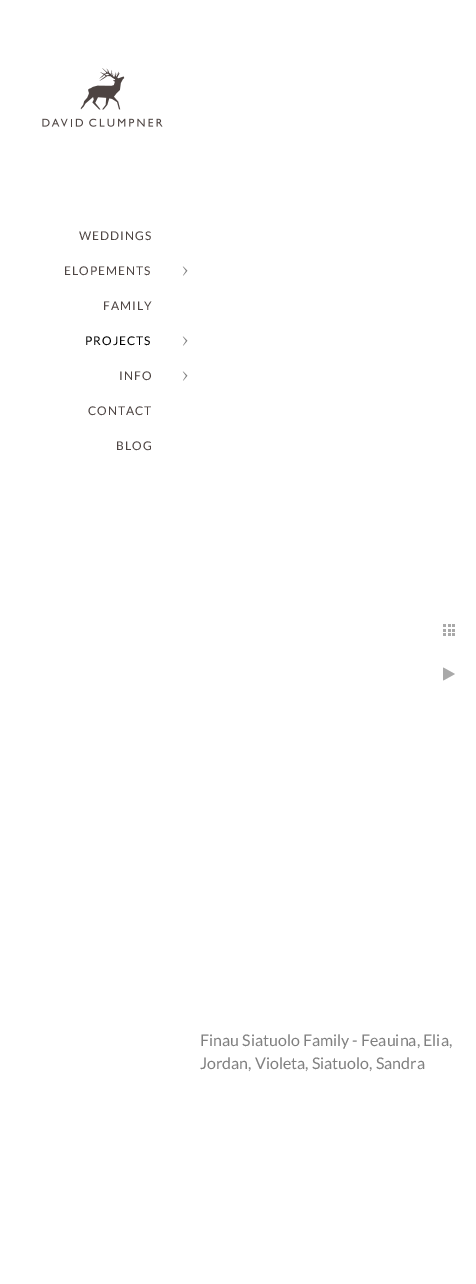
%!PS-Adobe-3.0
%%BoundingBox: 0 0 476 1284
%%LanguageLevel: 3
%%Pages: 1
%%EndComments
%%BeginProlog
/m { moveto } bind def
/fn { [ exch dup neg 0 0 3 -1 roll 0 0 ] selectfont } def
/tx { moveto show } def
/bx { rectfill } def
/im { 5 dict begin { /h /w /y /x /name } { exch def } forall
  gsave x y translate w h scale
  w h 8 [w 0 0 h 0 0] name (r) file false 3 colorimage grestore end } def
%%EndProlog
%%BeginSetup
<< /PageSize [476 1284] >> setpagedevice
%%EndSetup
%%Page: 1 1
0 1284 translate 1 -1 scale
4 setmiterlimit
1 setgray
0 0 476 1284 bx
(image0.raw) 42 68 121 59 im
/Lato-Regular 12 fn
0.302 0.267 0.259 setrgbcolor
79 240 m 1 0 (WEDDINGS) ashow
64 275 m 1 0 (ELOPEMENTS) ashow
(image1.raw) 182 266 6 10 im
103 310 m 1 0 (FAMILY) ashow
0 setgray
85 345 m 1 0 (PROJECTS) ashow
(image1.raw) 182 336 6 10 im
0.302 0.267 0.259 setrgbcolor
119 380 m 1 0 (INFO) ashow
(image1.raw) 182 371 6 10 im
88 415 m 1 0 (CONTACT) ashow
116 450 m 1 0 (BLOG) ashow
(image2.raw) 443 624 12 12 im
(image3.raw) 443 667 12 14 im
/Lato-Regular 16 fn
0.502 setgray
(Finau Siatuolo Family - Feauina, Elia,) 200 1046 tx
(Jordan, Violeta, Siatuolo, Sandra) 200 1069 tx
showpage
%%EOF
